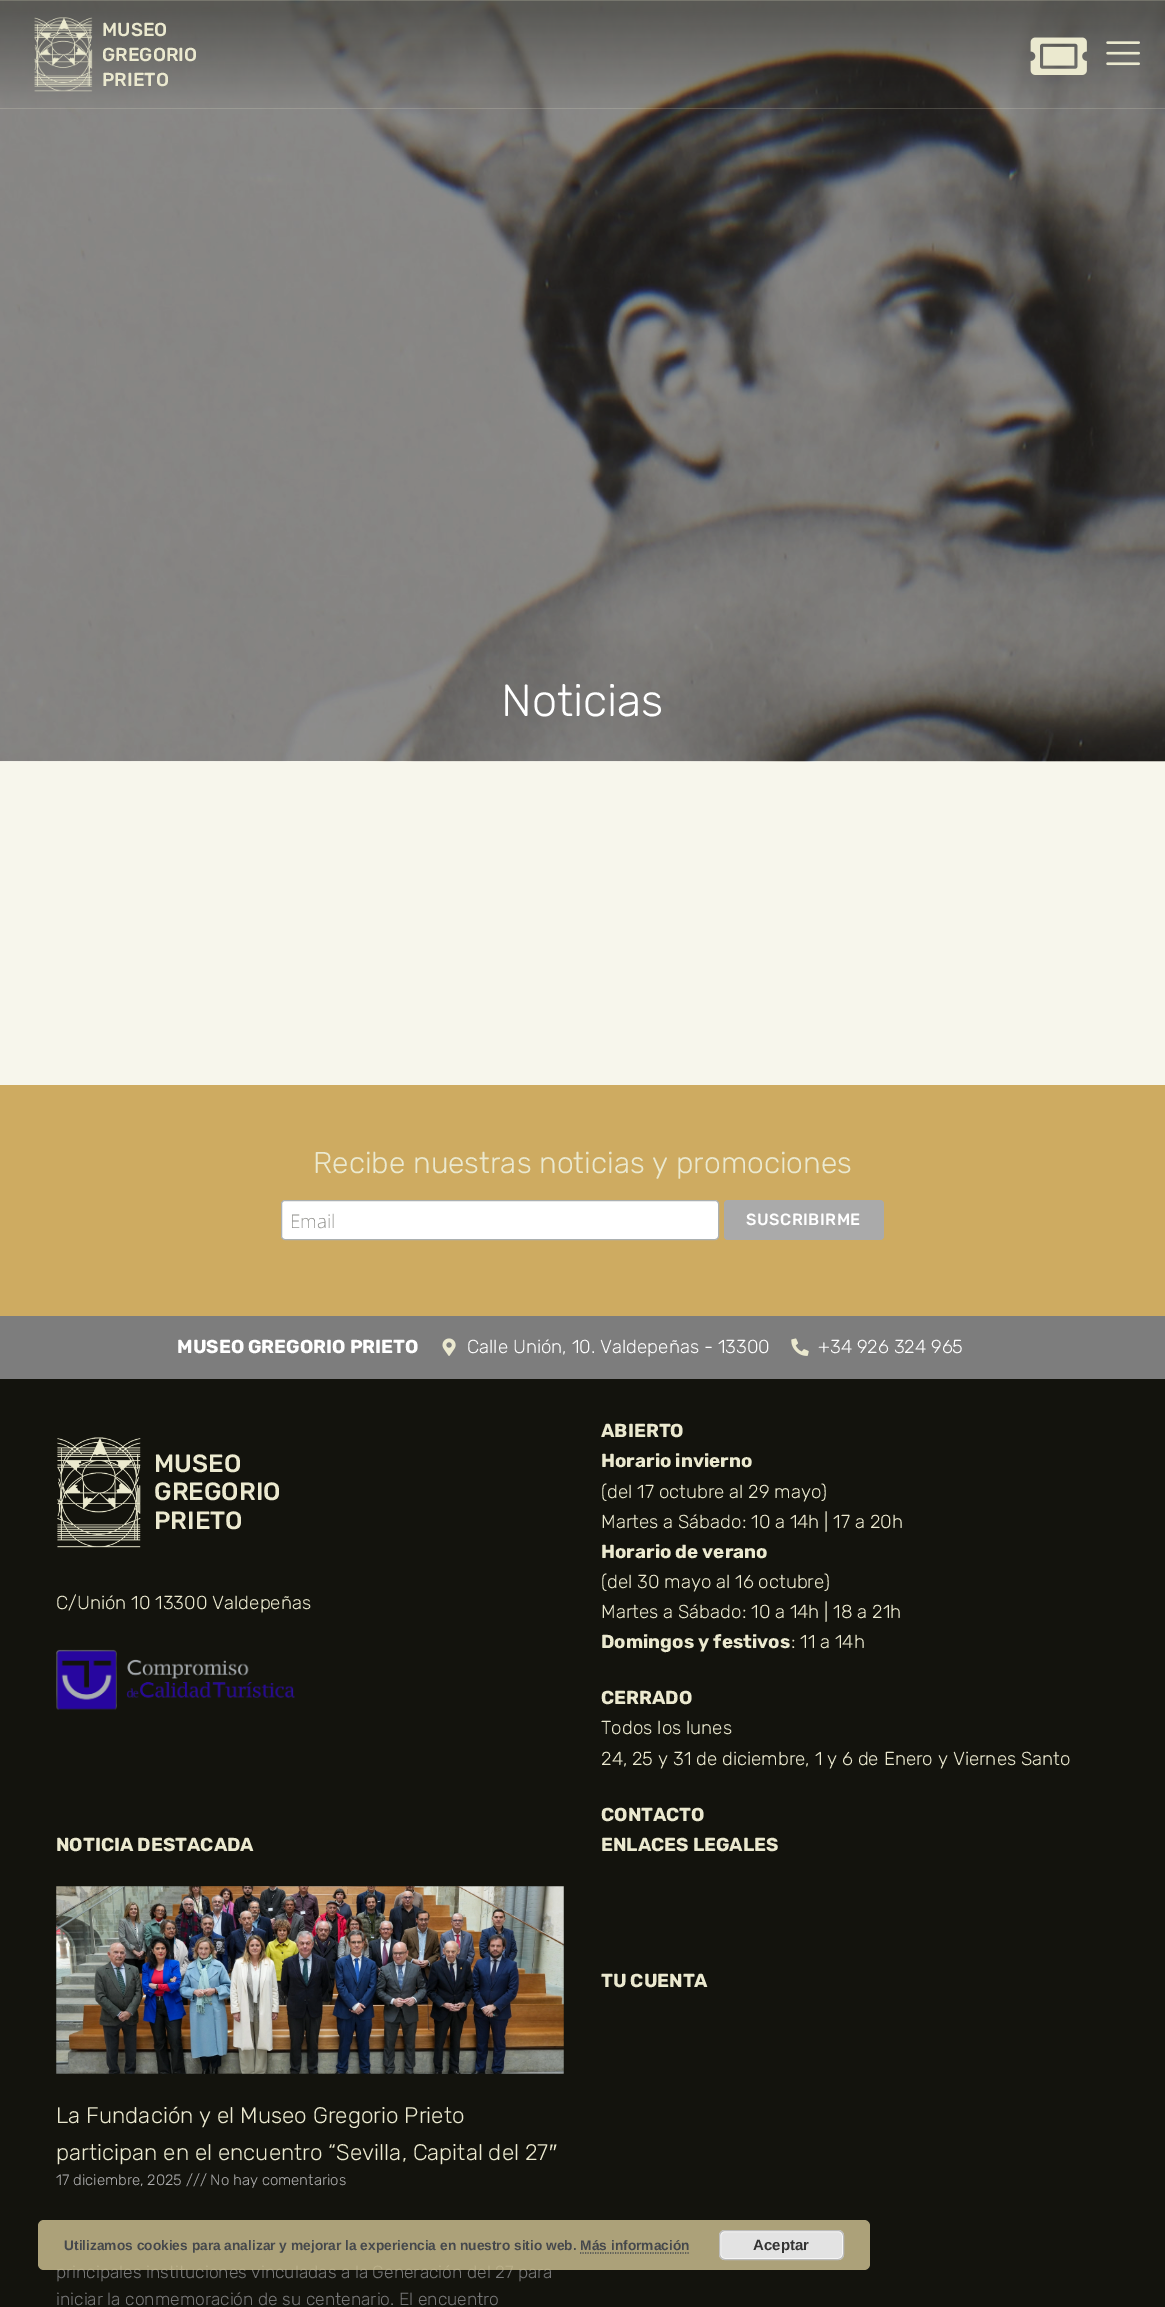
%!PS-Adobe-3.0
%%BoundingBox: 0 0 1165 2307
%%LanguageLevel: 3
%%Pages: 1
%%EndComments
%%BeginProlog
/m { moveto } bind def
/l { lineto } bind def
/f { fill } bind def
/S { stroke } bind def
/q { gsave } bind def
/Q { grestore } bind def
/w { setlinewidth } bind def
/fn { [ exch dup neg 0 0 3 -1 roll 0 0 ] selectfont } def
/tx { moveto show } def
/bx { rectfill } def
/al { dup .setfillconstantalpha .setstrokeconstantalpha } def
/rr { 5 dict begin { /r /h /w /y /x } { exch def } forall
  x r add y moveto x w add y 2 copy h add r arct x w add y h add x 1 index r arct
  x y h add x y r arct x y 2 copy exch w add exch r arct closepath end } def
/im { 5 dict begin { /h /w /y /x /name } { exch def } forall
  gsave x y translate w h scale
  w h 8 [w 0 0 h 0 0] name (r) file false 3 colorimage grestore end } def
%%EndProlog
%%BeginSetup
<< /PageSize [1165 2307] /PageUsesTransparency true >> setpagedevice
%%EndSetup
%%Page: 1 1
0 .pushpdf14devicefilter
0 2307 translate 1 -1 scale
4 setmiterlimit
0.969 0.965 0.925 setrgbcolor
0 0 1165 2307 bx
(image3.raw) 0 0 1165 762 im
0.2 al
0.922 0.914 0.812 setrgbcolor
0 0 1165 1 bx
0 108 1165 1 bx
1 al
(image0.raw) 34 17 59 75 im
/Rubik-Medium 18.75 fn
(MUSEO) 102 36 tx
(GREGORIO) 102 61 tx
(PRIETO) 102 86 tx
(image1.raw) 1030 37 57 38 im
(image2.raw) 1106 41 34 25 im
/Rubik-Light 45 fn
1 setgray
(Noticias) 501 716 tx
0.808 0.671 0.38 setrgbcolor
0 1085 1165 231 bx
/Rubik-Light 30 fn
0.922 0.914 0.812 setrgbcolor
(Recibe nuestras noticias y promociones) 313 1173 tx
1 setgray
281.5 1200.5 437 39 3.5 rr q f Q
0.671 0.69 0.698 setrgbcolor
S
/OpenSans-Light 18.75 fn
0.576 0.576 0.561 setrgbcolor
(Email) 290 1228 tx
0.667 setgray
724 1200 160 40 4 rr f
/Rubik-Medium 16.25 fn
1 setgray
746 1225 m 0.5 0 (SUSCRIBIRME) ashow
0.49 setgray
0 1316 1165 63 bx
/Rubik-Bold 18.75 fn
1 setgray
(MUSEO GREGORIO PRIETO) 177 1353 tx
(image4.raw) 442 1338 14 18 im
/Rubik-Light 18.75 fn
(Calle Unión, 10. Valdepeñas - 13300) 467 1353 tx
(image5.raw) 791 1338 18 18 im
(+34 926 324 965) 818 1353 tx
0.075 0.075 0.051 setrgbcolor
0 1379 1165 928 bx
(image6.raw) 57 1437 84 111 im
/Rubik-Medium 25 fn
0.922 0.914 0.812 setrgbcolor
(MUSEO) 154 1472 tx
(GREGORIO) 154 1500 tx
(PRIETO) 154 1529 tx
/Rubik-Light 18.75 fn
(C/Unión 10 13300 Valdepeñas) 56 1609 tx
(image7.raw) 56 1649 239 61 im
/Rubik-Bold 18.75 fn
(ABIERTO) 601 1437 tx
(Horario invierno) 601 1467 tx
/Rubik-Light 18.75 fn
(\(del 17 octubre al 29 mayo\)) 601 1498 tx
(Martes a Sábado: 10 a 14h | 17 a 20h) 601 1528 tx
/Rubik-Bold 18.75 fn
(Horario de verano) 601 1558 tx
/Rubik-Light 18.75 fn
(\(del 30 mayo al 16 octubre\)) 601 1588 tx
(Martes a Sábado: 10 a 14h | 18 a 21h) 601 1618 tx
/Rubik-Bold 18.75 fn
(Domingos y festivos) 601 1648 tx
/Rubik-Light 18.75 fn
(: 11 a 14h) 791 1648 tx
/Rubik-Bold 18.75 fn
(CERRADO) 601 1704 tx
/Rubik-Light 18.75 fn
(Todos los lunes) 601 1734 tx
(24, 25 y 31 de diciembre, 1 y 6 de Enero y Viernes Santo) 601 1765 tx
/Rubik-Bold 18.75 fn
(CONTACTO) 601 1821 tx
(NOTICIA DESTACADA) 56 1851 tx
(image8.raw) 56 1886 508 188 im
/Rubik-Light 22.5 fn
(La Fundación y el Museo Gregorio Prieto) 56 2123 tx
(participan en el encuentro “Sevilla, Capital del 27) 56 2160 tx
/LiberationSans-Regular 22.5 fn
(″) 549 2160 tx
/Rubik-Light 15 fn
0.678 setgray
(17 diciembre, 2025 /// No hay comentarios) 56 2185 tx
/Rubik-Light 17.5 fn
0.467 setgray
(principales instituciones vinculadas a la Generación del 27 para) 56 2278 tx
(iniciar la conmemoración de su centenario. El encuentro) 56 2305 tx
/Rubik-Bold 18.75 fn
0.922 0.914 0.812 setrgbcolor
(ENLACES LEGALES) 601 1851 tx
(TU CUENTA) 601 1987 tx
0.85 al
0.78 0.729 0.549 setrgbcolor
38 2220 832 50 6 rr f
/LiberationSans-Bold 13.75 fn
1 al
0.271 0.282 0.298 setrgbcolor
(Utilizamos cookies para analizar y mejorar la experiencia en nuestro sitio web. Más información) 64 2250 tx
0.89 setgray
719 2230 125 30 6 rr f
0.965 setgray
720.5 2231.5 122 27 4.5 rr S
0.733 setgray
719.5 2230.5 124 29 5.5 rr S
/LiberationSans-Bold 15 fn
0.2 setgray
(Aceptar) 753 2250 tx
0.271 0.282 0.298 setrgbcolor
1.2 w
[1.25 1.25] 0 setdash
580 2253 m 690 2253 l S
.poppdf14devicefilter showpage
%%EOF
